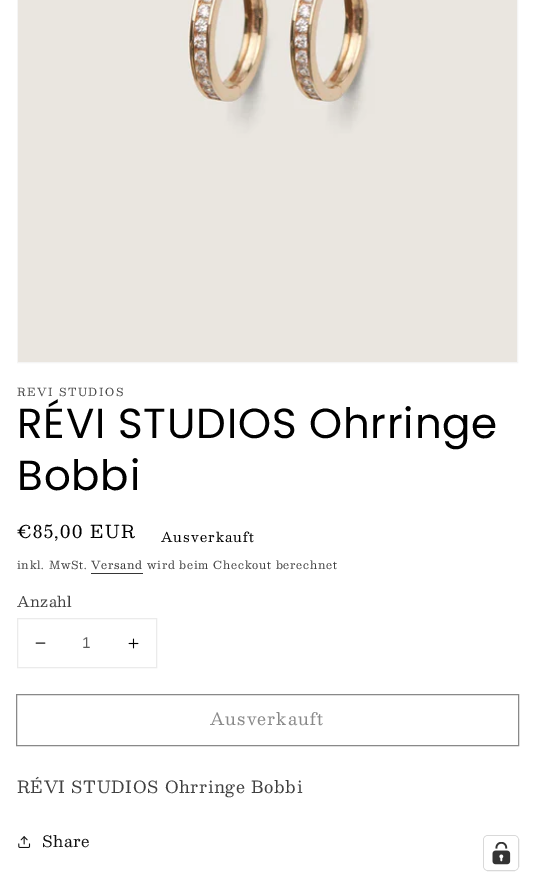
%!PS-Adobe-3.0
%%BoundingBox: 0 0 534 886
%%LanguageLevel: 3
%%Pages: 1
%%EndComments
%%BeginProlog
/m { moveto } bind def
/f { fill } bind def
/S { stroke } bind def
/fn { [ exch dup neg 0 0 3 -1 roll 0 0 ] selectfont } def
/tx { moveto show } def
/bx { rectfill } def
/rr { 5 dict begin { /r /h /w /y /x } { exch def } forall
  x r add y moveto x w add y 2 copy h add r arct x w add y h add x 1 index r arct
  x y h add x y r arct x y 2 copy exch w add exch r arct closepath end } def
/im { 5 dict begin { /h /w /y /x /name } { exch def } forall
  gsave x y translate w h scale
  w h 8 [w 0 0 h 0 0] name (r) file false 3 colorimage grestore end } def
%%EndProlog
%%BeginSetup
<< /PageSize [534 886] >> setpagedevice
%%EndSetup
%%Page: 1 1
0 886 translate 1 -1 scale
4 setmiterlimit
1 setgray
0 0 534 886 bx
0.961 setgray
17.5 -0.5 500 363 rectstroke
(image0.raw) 18 0 499 362 im
/Besley-Regular 11 fn
0.251 setgray
17 396 m 1.5 0 (REVI STUDIOS) ashow
/Poppins-Regular 42 fn
0 setgray
17 438 m 0.8 0 (RÉVI STUDIOS Ohrringe) ashow
17 490 m 0.8 0 (Bobbi) ashow
/Besley-Regular 17.5 fn
17 538 m 1.5 0 (€85,00 EUR) ashow
/Besley-Regular 13.25 fn
161 542 m 1.1 0 (Ausverkauft) ashow
/Besley-Regular 11 fn
0.251 setgray
17 569 m 0.75 0 (inkl. MwSt.) ashow
0.212 setgray
91 569 m 0.75 0 (Versand) ashow
91 573 52 1 bx
0.251 setgray
147 569 m 0.75 0 (wird beim Checkout berechnet) ashow
/Besley-Regular 14.5 fn
17 607 m 0.5 0 (Anzahl) ashow
0.922 setgray
17.5 618.5 139 49 rectstroke
(image1.raw) 35 642 11 2 im
/LiberationSans-Regular 15.5 fn
0.361 setgray
(1) 82 648 tx
(image2.raw) 128 638 11 11 im
0.537 setgray
16.5 694.5 502 51 rectstroke
/Besley-Regular 16.5 fn
210 725 m 1.1 0 (Ausverkauft) ashow
0.251 setgray
17 793 m 0.65 0 (RÉVI STUDIOS Ohrringe Bobbi) ashow
(image3.raw) 18 836 13 12 im
/Besley-Regular 15.5 fn
0.071 setgray
42 847 m 0.65 0 (Share) ashow
0.851 setgray
483.5 835.5 35 35 4.5 rr S
1 setgray
484 836 34 34 4 rr f
(image4.raw) 492 842 19 23 im
showpage
%%EOF
